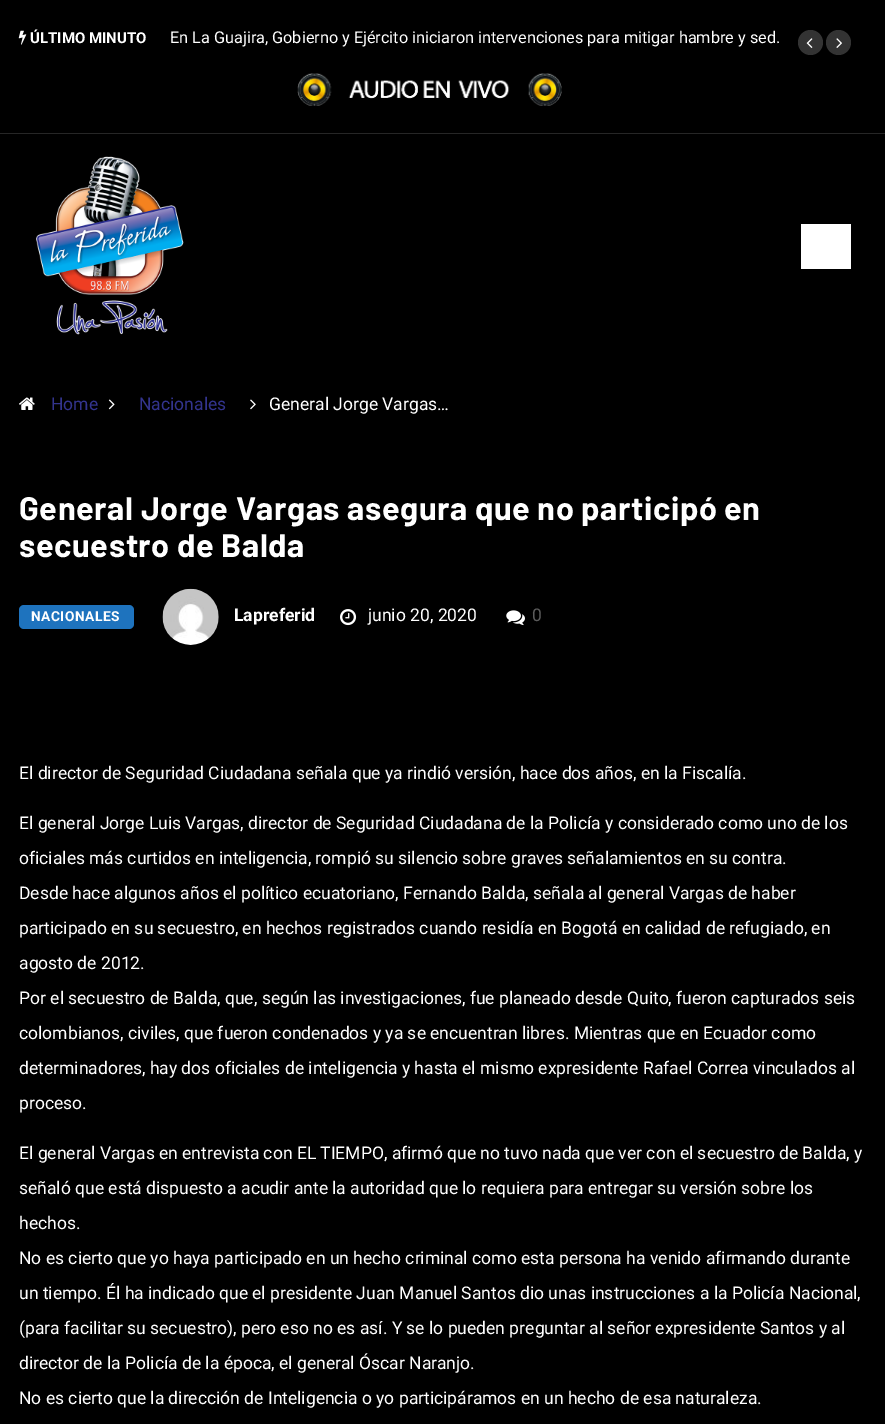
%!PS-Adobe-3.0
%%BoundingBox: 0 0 885 1424
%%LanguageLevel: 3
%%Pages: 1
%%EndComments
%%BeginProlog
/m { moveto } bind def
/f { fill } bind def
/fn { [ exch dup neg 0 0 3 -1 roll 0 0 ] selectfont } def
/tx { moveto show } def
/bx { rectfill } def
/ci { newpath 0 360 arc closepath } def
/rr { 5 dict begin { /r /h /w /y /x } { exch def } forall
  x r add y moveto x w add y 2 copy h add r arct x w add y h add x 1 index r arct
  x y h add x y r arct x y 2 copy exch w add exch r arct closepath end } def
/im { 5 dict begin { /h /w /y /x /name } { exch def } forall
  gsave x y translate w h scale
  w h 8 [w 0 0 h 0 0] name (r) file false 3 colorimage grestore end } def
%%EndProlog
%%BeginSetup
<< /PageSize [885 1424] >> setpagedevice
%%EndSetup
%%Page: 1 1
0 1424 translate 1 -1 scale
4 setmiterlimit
0 setgray
0 0 885 1424 bx
0.149 setgray
0 133 885 1 bx
(image0.raw) 18 30 9 15 im
/Roboto-Bold 15 fn
1 setgray
(ÚLTIMO MINUTO) 30 43 tx
/Roboto-Regular 16.25 fn
(En La Guajira, Gobierno y Ejército iniciaron intervenciones para mitigar hambre y sed.) 170 43 tx
0.2 setgray
810.5 42.5 12.5 ci f
(image1.raw) 806 38 7 10 im
838.5 42.5 12.5 ci f
(image2.raw) 836 38 6 10 im
(image3.raw) 297 73 265 33 im
(image4.raw) 36 156 148 179 im
1 setgray
801 224 50 45 bx
(image5.raw) 19 397 16 13 im
/Roboto-Regular 17.5 fn
0.2 0.204 0.557 setrgbcolor
(Home) 51 410 tx
(image6.raw) 108 399 7 11 im
(Nacionales) 139 410 tx
(image7.raw) 250 399 6 11 im
1 setgray
(General Jorge Vargas…) 269 410 tx
/Barlow-Bold 32.5 fn
19 520 m 0.55 0 (General Jorge Vargas asegura que no participó en) ashow
19 557 m 0.55 0 (secuestro de Balda) ashow
0.118 0.451 0.745 setrgbcolor
19 605 115 24 5 rr f
/Roboto-Bold 13.75 fn
1 setgray
31 621 m 0.5 0 (NACIONALES) ashow
(image8.raw) 162 588 57 57 im
/Roboto-Bold 17.5 fn
(Lapreferid) 234 621 tx
(image9.raw) 340 609 17 17 im
/Roboto-Regular 17.5 fn
(junio 20, 2020) 368 621 tx
(image10.raw) 506 610 19 16 im
0.361 setgray
(0) 532 621 tx
1 setgray
(El director de Seguridad Ciudadana señala que ya rindió versión, hace dos años, en la Fiscalía.) 19 779 tx
(El general Jorge Luis Vargas, director de Seguridad Ciudadana de la Policía y considerado como uno de los) 19 829 tx
(oficiales más curtidos en inteligencia, rompió su silencio sobre graves señalamientos en su contra.) 19 864 tx
(Desde hace algunos años el político ecuatoriano, Fernando Balda, señala al general Vargas de haber) 19 899 tx
(participado en su secuestro, en hechos registrados cuando residía en Bogotá en calidad de refugiado, en) 19 934 tx
(agosto de 2012.) 19 969 tx
(Por el secuestro de Balda, que, según las investigaciones, fue planeado desde Quito, fueron capturados seis) 19 1004 tx
(colombianos, civiles, que fueron condenados y ya se encuentran libres. Mientras que en Ecuador como) 19 1039 tx
(determinadores, hay dos oficiales de inteligencia y hasta el mismo expresidente Rafael Correa vinculados al) 19 1074 tx
(proceso.) 19 1109 tx
(El general Vargas en entrevista con EL TIEMPO, afirmó que no tuvo nada que ver con el secuestro de Balda, y) 19 1159 tx
(señaló que está dispuesto a acudir ante la autoridad que lo requiera para entregar su versión sobre los) 19 1194 tx
(hechos.) 19 1229 tx
(No es cierto que yo haya participado en un hecho criminal como esta persona ha venido afirmando durante) 19 1264 tx
(un tiempo. Él ha indicado que el presidente Juan Manuel Santos dio unas instrucciones a la Policía Nacional,) 19 1299 tx
(\(para facilitar su secuestro\), pero eso no es así. Y se lo pueden preguntar al señor expresidente Santos y al) 19 1334 tx
(director de la Policía de la época, el general Óscar Naranjo.) 19 1369 tx
(No es cierto que la dirección de Inteligencia o yo participáramos en un hecho de esa naturaleza.) 19 1404 tx
showpage
%%EOF
